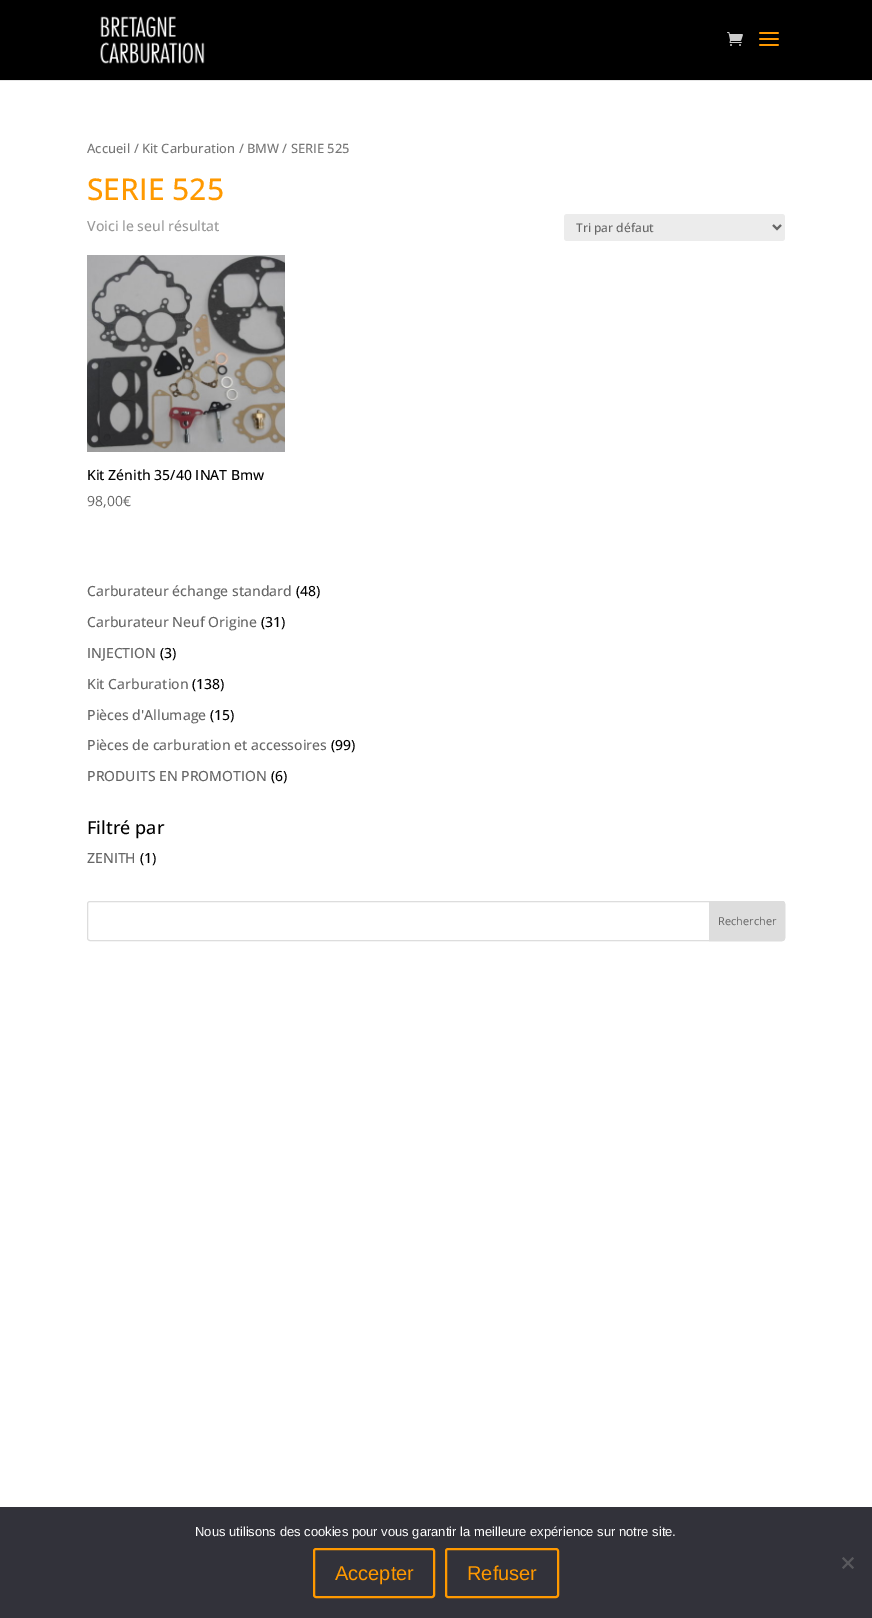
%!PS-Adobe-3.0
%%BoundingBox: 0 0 872 1618
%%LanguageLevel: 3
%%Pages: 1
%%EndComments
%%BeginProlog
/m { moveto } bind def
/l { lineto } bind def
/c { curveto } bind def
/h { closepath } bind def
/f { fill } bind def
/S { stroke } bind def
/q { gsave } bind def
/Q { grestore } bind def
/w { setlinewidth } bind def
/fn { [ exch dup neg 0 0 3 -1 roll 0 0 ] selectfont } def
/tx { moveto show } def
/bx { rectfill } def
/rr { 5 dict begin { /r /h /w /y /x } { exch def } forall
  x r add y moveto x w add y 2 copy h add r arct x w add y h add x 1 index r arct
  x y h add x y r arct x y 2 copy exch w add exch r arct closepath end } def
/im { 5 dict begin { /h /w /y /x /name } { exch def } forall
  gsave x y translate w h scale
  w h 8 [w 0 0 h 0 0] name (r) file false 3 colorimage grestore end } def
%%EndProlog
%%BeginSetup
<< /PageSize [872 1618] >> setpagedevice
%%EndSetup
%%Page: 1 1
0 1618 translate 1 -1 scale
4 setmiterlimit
1 setgray
0 0 872 1618 bx
0.902 setgray
0 80 872 1 bx
0 setgray
0 0 872 80 bx
(image0.raw) 100 16 105 48 im
(image1.raw) 727 32 16 14 im
(image2.raw) 759 32 20 14 im
/OpenSans-Medium 12.9 fn
0.463 setgray
(Accueil / Kit Carburation / BMW / SERIE 525) 87 153 tx
/OpenSans-Medium 30 fn
1 0.6 0 setrgbcolor
(SERIE 525) 87 200 tx
/OpenSans-Medium 14 fn
0.6 setgray
(Voici le seul résultat) 87 231 tx
0.925 setgray
564 214 221 27 3 rr f
0.4 setgray
2 w
773 225 m 777 229 l 781 225 l S
/OpenSans-Medium 12 fn
(Tri par défaut) 576 232 tx
(image3.raw) 87 255 198 197 im
/OpenSans-Medium 14 fn
0 setgray
(Kit Zénith 35/40 INAT Bmw) 87 480 tx
/OpenSans-Regular 14 fn
0.4 setgray
(98,00€) 87 506 tx
/OpenSans-Medium 14 fn
(Carburateur échange standard) 87 596 tx
0 setgray
(\(48\)) 296 596 tx
0.4 setgray
(Carburateur Neuf Origine) 87 627 tx
0 setgray
(\(31\)) 261 627 tx
0.4 setgray
(INJECTION) 87 658 tx
0 setgray
(\(3\)) 160 658 tx
0.4 setgray
(Kit Carburation) 87 689 tx
0 setgray
(\(138\)) 192 689 tx
0.4 setgray
(Pièces d'Allumage) 87 720 tx
0 setgray
(\(15\)) 210 720 tx
0.4 setgray
(Pièces de carburation et accessoires) 87 750 tx
0 setgray
(\(99\)) 331 750 tx
0.4 setgray
(PRODUITS EN PROMOTION) 87 781 tx
0 setgray
(\(6\)) 271 781 tx
/OpenSans-Medium 18 fn
(Filtré par) 87 834 tx
/OpenSans-Medium 14 fn
0.4 setgray
(ZENITH) 87 863 tx
0 setgray
(\(1\)) 140 863 tx
0.867 setgray
1 w
87.5 901.5 697 39 2.5 rr S
709.5 901.5 m 782 901.5 l 783.5 901.5 784.5 902.5 784.5 904 c 784.5 938 l 784.5 939.5 783.5 940.5 782 940.5 c 709.5 940.5 l h q f Q
S
/OpenSans-Regular 11 fn
0.4 setgray
(Rechercher) 718 925 tx
0.196 0.196 0.227 setrgbcolor
0 1507 872 111 bx
/LiberationSans-Regular 13 fn
1 setgray
(Nous utilisons des cookies pour vous garantir la meilleure expérience sur notre site.) 195 1536 tx
0.349 0.349 0.365 setrgbcolor
852.5 1557 m 854 1558.5 l 843.5 1569 l 842 1567.5 l h f
842 1558.5 m 843.5 1557 l 854 1567.5 l 852.5 1569 l h f
1 0.6 0 setrgbcolor
2 w
314 1549 120 48 2 rr S
/LiberationSans-Regular 20 fn
(Accepter) 335 1580 tx
446 1549 112 48 2 rr S
(Refuser) 467 1580 tx
showpage
%%EOF
